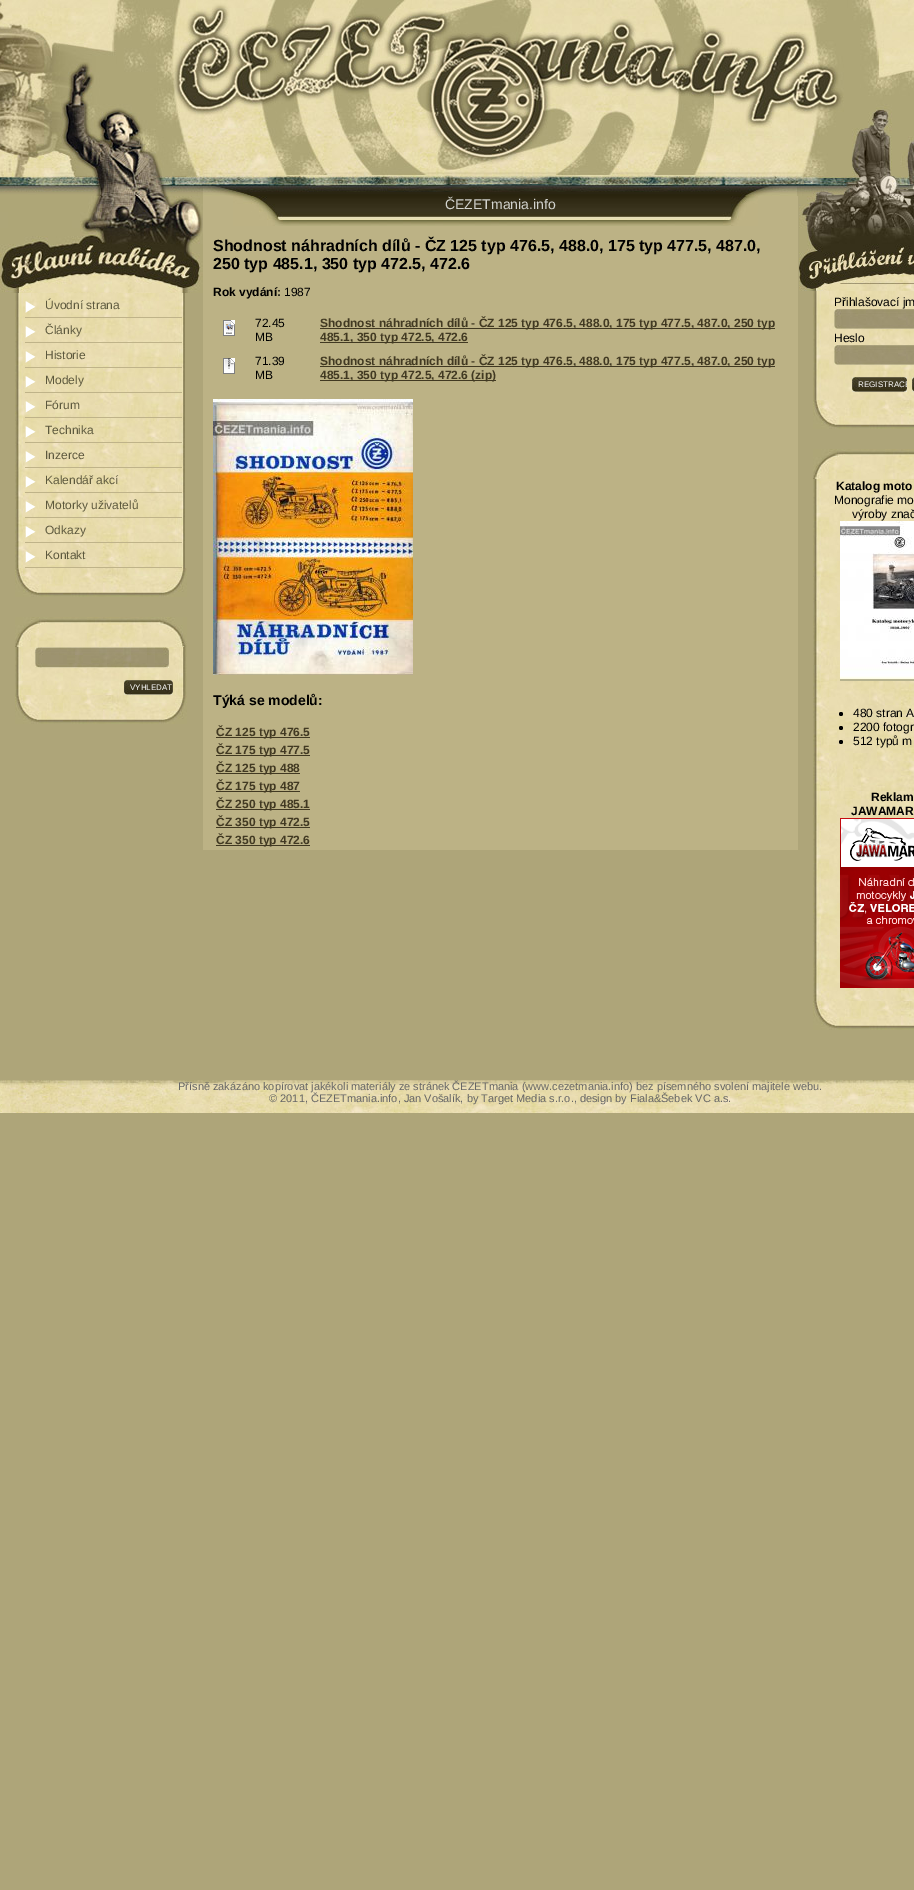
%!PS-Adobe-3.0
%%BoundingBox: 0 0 914 1890
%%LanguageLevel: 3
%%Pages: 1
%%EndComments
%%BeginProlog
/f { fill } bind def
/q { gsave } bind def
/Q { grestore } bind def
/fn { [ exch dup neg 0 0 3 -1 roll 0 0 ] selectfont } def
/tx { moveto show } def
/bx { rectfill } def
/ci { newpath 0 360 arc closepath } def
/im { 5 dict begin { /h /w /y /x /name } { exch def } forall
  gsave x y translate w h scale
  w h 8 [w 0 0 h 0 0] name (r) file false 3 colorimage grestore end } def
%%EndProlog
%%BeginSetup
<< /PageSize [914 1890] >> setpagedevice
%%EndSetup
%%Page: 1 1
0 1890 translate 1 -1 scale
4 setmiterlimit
0.682 0.647 0.475 setrgbcolor
0 0 914 1890 bx
(image0.raw) 0 0 914 196 im
(image1.raw) 0 196 203 97 im
(image2.raw) 15 293 170 275 im
(image3.raw) 25 301 11 12 im
0.749 0.702 0.537 setrgbcolor
25 317 157 1 bx
/LiberationSans-Regular 12 fn
0.365 0.349 0.243 setrgbcolor
(Úvodní strana) 45 309 tx
(image4.raw) 25 326 11 12 im
0.749 0.702 0.537 setrgbcolor
25 342 157 1 bx
0.365 0.349 0.243 setrgbcolor
(Články) 45 334 tx
(image5.raw) 25 351 11 12 im
0.749 0.702 0.537 setrgbcolor
25 367 157 1 bx
0.365 0.349 0.243 setrgbcolor
(Historie) 45 359 tx
(image6.raw) 25 376 11 12 im
0.749 0.702 0.537 setrgbcolor
25 392 157 1 bx
0.365 0.349 0.243 setrgbcolor
(Modely) 45 384 tx
(image7.raw) 25 401 11 12 im
0.749 0.702 0.537 setrgbcolor
25 417 157 1 bx
0.365 0.349 0.243 setrgbcolor
(Fórum) 45 409 tx
(image8.raw) 25 426 11 12 im
0.749 0.702 0.537 setrgbcolor
25 442 157 1 bx
0.365 0.349 0.243 setrgbcolor
(Technika) 45 434 tx
(image9.raw) 25 451 11 12 im
0.749 0.702 0.537 setrgbcolor
25 467 157 1 bx
0.365 0.349 0.243 setrgbcolor
(Inzerce) 45 459 tx
(image10.raw) 25 476 11 12 im
0.749 0.702 0.537 setrgbcolor
25 492 157 1 bx
0.365 0.349 0.243 setrgbcolor
(Kalendář akcí) 45 484 tx
(image11.raw) 25 501 11 12 im
0.749 0.702 0.537 setrgbcolor
25 517 157 1 bx
0.365 0.349 0.243 setrgbcolor
(Motorky uživatelů) 45 509 tx
(image12.raw) 25 526 11 12 im
0.749 0.702 0.537 setrgbcolor
25 542 157 1 bx
0.365 0.349 0.243 setrgbcolor
(Odkazy) 45 534 tx
(image13.raw) 25 551 11 12 im
0.749 0.702 0.537 setrgbcolor
25 567 157 1 bx
0.365 0.349 0.243 setrgbcolor
(Kontakt) 45 559 tx
(image14.raw) 15 568 172 29 im
(image15.raw) 15 617 172 30 im
(image16.raw) 15 647 172 48 im
(image17.raw) 35 647 134 21 im
(image18.raw) 124 680 49 15 im
/LiberationSans-Regular 8 fn
1 setgray
(VYHLEDAT) 130 690 tx
(image14.raw) 15 695 172 29 im
0.737 0.698 0.522 setrgbcolor
203 196 595 654 bx
(image19.raw) 233 196 525 30 im
/LiberationSans-Regular 14 fn
0.827 0.831 0.812 setrgbcolor
(ČEZETmania.info) 445 209 tx
/LiberationSans-Bold 16 fn
0 setgray
(Shodnost náhradních dílů - ČZ 125 typ 476.5, 488.0, 175 typ 477.5, 487.0,) 213 251 tx
(250 typ 485.1, 350 typ 472.5, 472.6) 213 269 tx
/LiberationSans-Bold 12 fn
(Rok vydání:) 213 296 tx
/LiberationSans-Regular 12 fn
(1987) 284 296 tx
(image20.raw) 223 320 12 16 im
(72.45) 255 327 tx
(MB) 255 341 tx
0.255 0.224 0.133 setrgbcolor
320 328 455 1 bx
/LiberationSans-Bold 12 fn
(Shodnost náhradních dílů - ČZ 125 typ 476.5, 488.0, 175 typ 477.5, 487.0, 250 typ) 320 327 tx
320 342 148 1 bx
(485.1, 350 typ 472.5, 472.6) 320 341 tx
(image21.raw) 223 358 12 16 im
/LiberationSans-Regular 12 fn
0 setgray
(71.39) 255 365 tx
(MB) 255 379 tx
0.255 0.224 0.133 setrgbcolor
320 366 455 1 bx
/LiberationSans-Bold 12 fn
(Shodnost náhradních dílů - ČZ 125 typ 476.5, 488.0, 175 typ 477.5, 487.0, 250 typ) 320 365 tx
320 380 176 1 bx
(485.1, 350 typ 472.5, 472.6 \(zip\)) 320 379 tx
(image22.raw) 213 399 200 276 im
/LiberationSans-Bold 14 fn
0 setgray
(Týká se modelů:) 213 705 tx
0.255 0.224 0.133 setrgbcolor
216 737 94 1 bx
/LiberationSans-Bold 12 fn
(ČZ 125 typ 476.5) 216 736 tx
216 755 94 1 bx
(ČZ 175 typ 477.5) 216 754 tx
216 773 84 1 bx
(ČZ 125 typ 488) 216 772 tx
216 791 84 1 bx
(ČZ 175 typ 487) 216 790 tx
216 809 94 1 bx
(ČZ 250 typ 485.1) 216 808 tx
216 827 94 1 bx
(ČZ 350 typ 472.5) 216 826 tx
216 845 94 1 bx
(ČZ 350 typ 472.6) 216 844 tx
(image23.raw) 799 196 115 95 im
(image24.raw) 813 291 101 109 im
/LiberationSans-Regular 12 fn
0 setgray
(Přihlašovací jm) 834 306 tx
(image25.raw) 834 309 80 20 im
(Heslo) 834 342 tx
(image25.raw) 834 345 80 20 im
(image26.raw) 852 377 55 15 im
q
852 377 55 15 rectclip
/LiberationSans-Regular 8 fn
1 setgray
(REGISTRACE) 858 387 tx
Q
(image27.raw) 912 377 2 15 im
(image28.raw) 813 400 101 29 im
(image29.raw) 813 449 101 30 im
(image30.raw) 813 479 101 522 im
/LiberationSans-Bold 12 fn
(Katalog moto) 836 490 tx
/LiberationSans-Regular 12 fn
(Monografie mo) 834 504 tx
(výroby znač) 852 518 tx
(image31.raw) 840 521 74 160 im
841 714 2 ci f
(480 stran A) 853 717 tx
841 728 2 ci f
(2200 fotogr) 853 731 tx
841 742 2 ci f
(512 typů m) 853 745 tx
/LiberationSans-Bold 12 fn
(Reklam) 871 801 tx
(JAWAMAR) 851 815 tx
(image32.raw) 840 818 74 170 im
(image28.raw) 813 1001 101 29 im
(image33.raw) 0 1080 914 33 im
/LiberationSans-Regular 11 fn
0.4 setgray
(Přísně zakázáno kopírovat jakékoli materiály ze stránek ČEZETmania \(www.cezetmania.info\) bez písemného svolení majitele webu.) 178 1090 tx
(© 2011, ČEZETmania.info, Jan Vošalík, by Target Media s.r.o., design by Fiala&Šebek VC a.s.) 269 1102 tx
showpage
%%EOF
